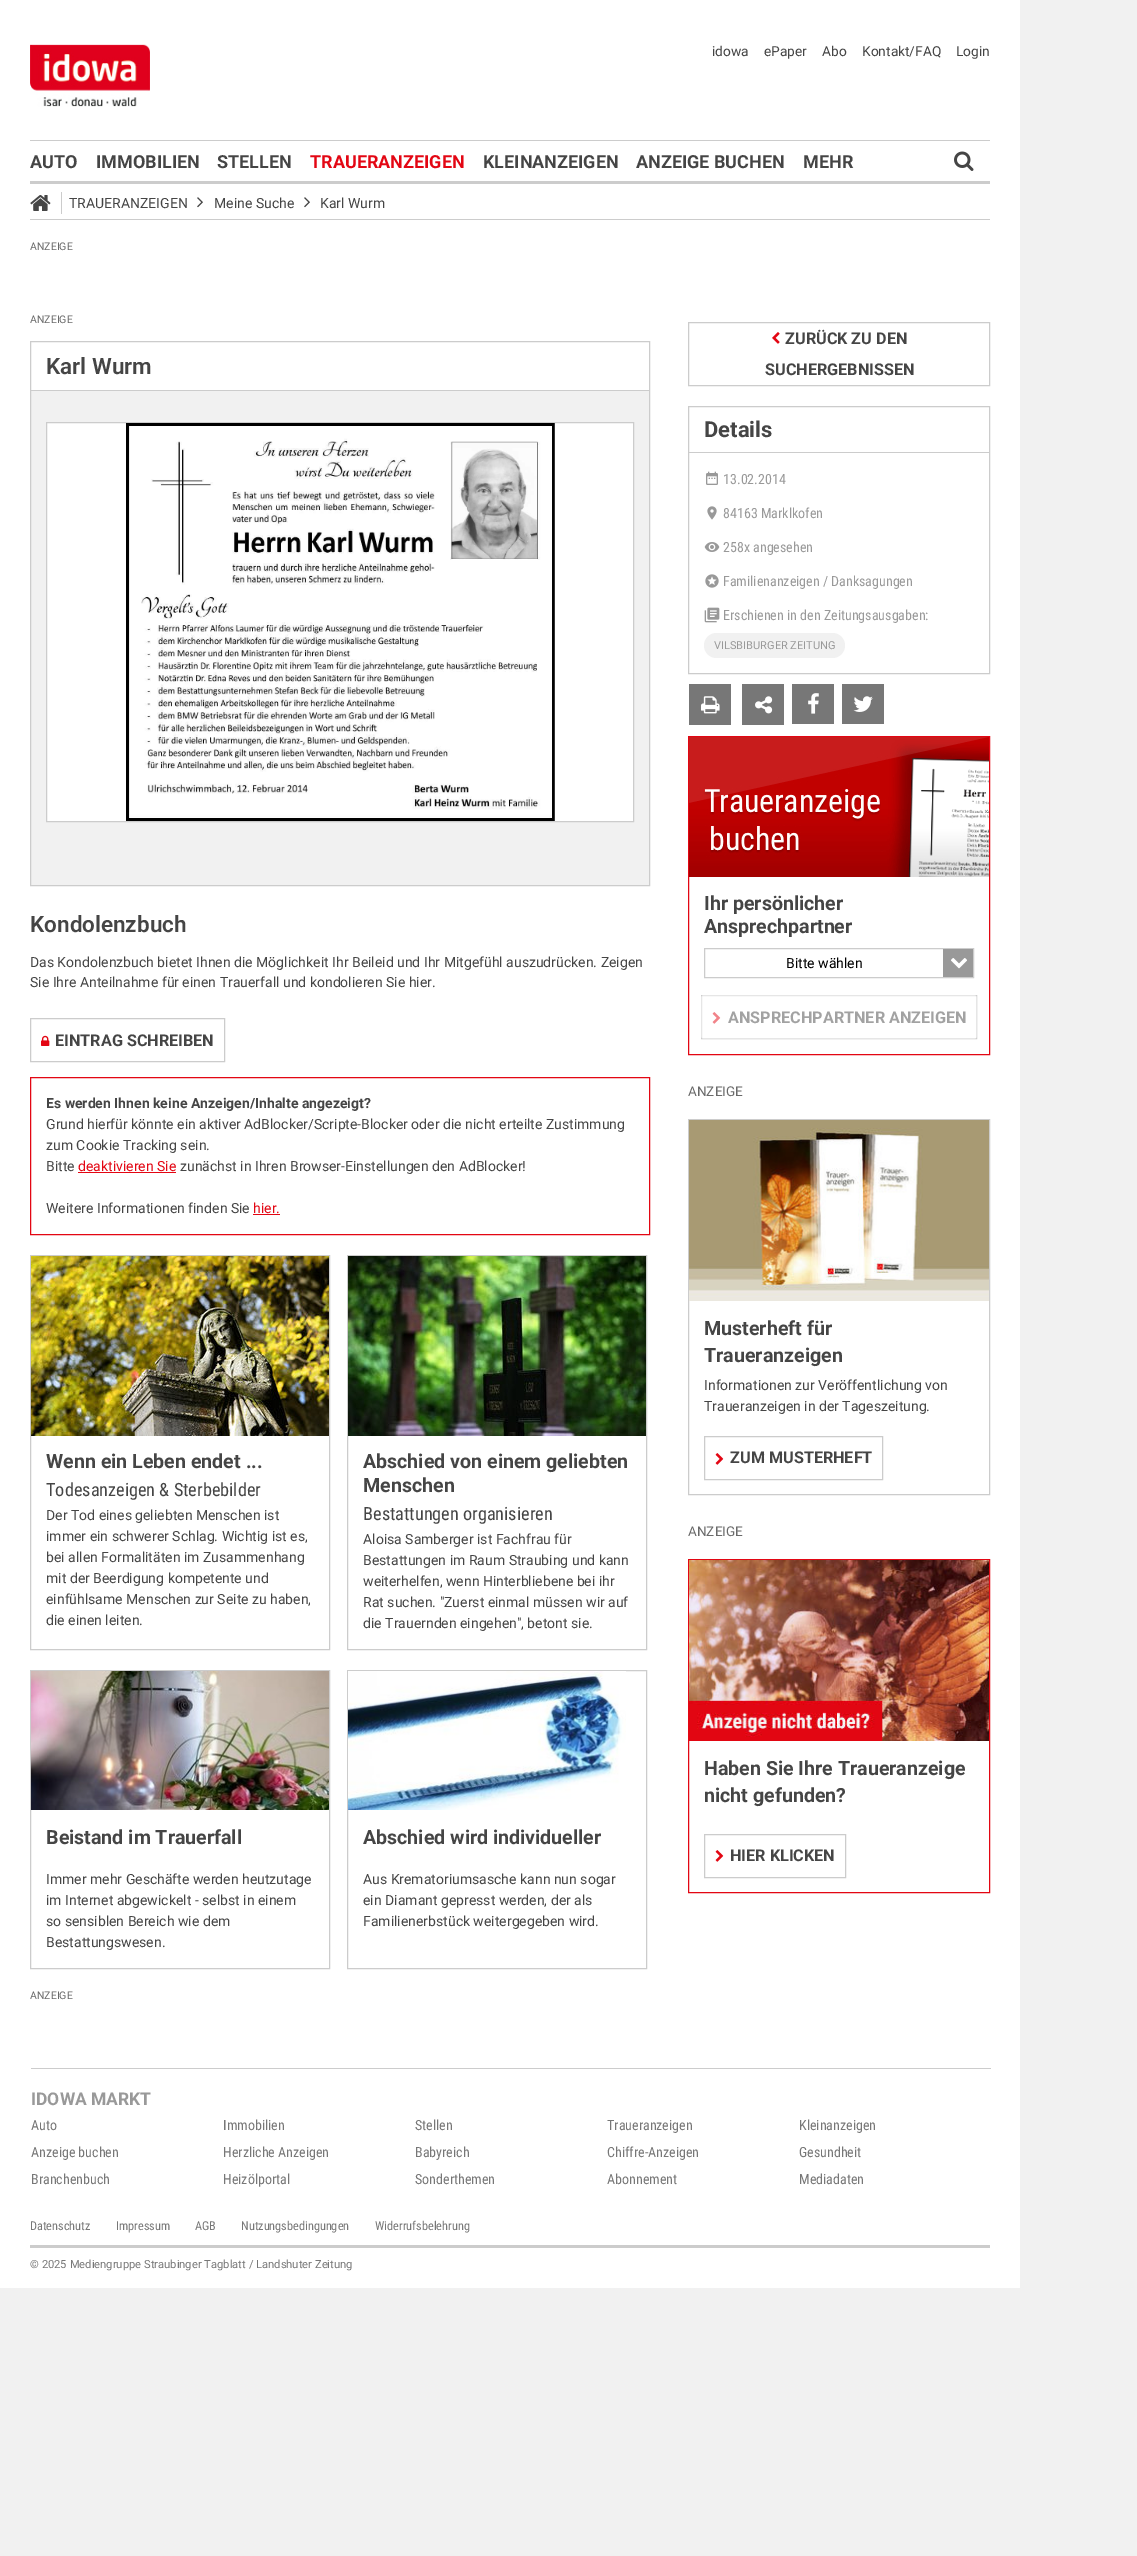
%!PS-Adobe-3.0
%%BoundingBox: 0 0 1137 2556
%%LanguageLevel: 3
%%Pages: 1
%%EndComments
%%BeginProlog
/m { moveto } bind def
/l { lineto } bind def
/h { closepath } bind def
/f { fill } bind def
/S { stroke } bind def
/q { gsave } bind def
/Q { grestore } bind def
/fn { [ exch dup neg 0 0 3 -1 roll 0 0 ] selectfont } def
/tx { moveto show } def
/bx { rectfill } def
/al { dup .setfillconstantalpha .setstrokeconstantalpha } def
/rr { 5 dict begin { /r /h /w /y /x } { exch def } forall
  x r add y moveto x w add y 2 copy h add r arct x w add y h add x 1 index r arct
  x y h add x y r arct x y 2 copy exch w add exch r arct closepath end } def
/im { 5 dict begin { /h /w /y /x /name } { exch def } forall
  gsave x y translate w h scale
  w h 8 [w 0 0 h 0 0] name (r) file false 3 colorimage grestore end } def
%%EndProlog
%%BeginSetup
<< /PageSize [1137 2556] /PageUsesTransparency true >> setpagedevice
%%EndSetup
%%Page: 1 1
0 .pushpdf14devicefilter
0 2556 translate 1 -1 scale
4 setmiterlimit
0.945 setgray
0 0 1137 2556 bx
1 setgray
0 0 1020 2288 bx
(image0.raw) 30 44 120 63 im
/Roboto-Regular 13.75 fn
0.271 setgray
(idowa) 712 56 tx
(ePaper) 764 56 tx
(Abo) 822 56 tx
(Kontakt/FAQ) 862 56 tx
(Login) 956 56 tx
0.8 setgray
30 140 960 1 bx
30 181 960 3 bx
/Roboto-Bold 18 fn
0.271 setgray
(AUTO) 30 168 tx
(IMMOBILIEN) 96 168 tx
(STELLEN) 217 168 tx
0.89 0.024 0.075 setrgbcolor
(TRAUERANZEIGEN) 310 168 tx
0.271 setgray
(KLEINANZEIGEN) 483 168 tx
(ANZEIGE BUCHEN) 636 168 tx
(MEHR) 803 168 tx
(image1.raw) 954 151 20 20 im
0.8 setgray
30 219 960 1 bx
(image2.raw) 30 195 21 16 im
61 192 1 22 bx
/Roboto-Regular 14 fn
0.271 setgray
(TRAUERANZEIGEN) 69 208 tx
(image3.raw) 197 197 6 11 im
(Meine Suche) 214 208 tx
(image3.raw) 304 197 6 11 im
(Karl Wurm) 320 208 tx
/Roboto-Regular 10.5 fn
0.412 setgray
(ANZEIGE) 30 250 tx
(ANZEIGE) 30 323 tx
0.945 setgray
31 391 618 494 bx
0.8 setgray
30.5 341.5 619 544 rectstroke
31 390 618 1 bx
/Roboto-SemiBold 22.5 fn
0.271 setgray
(Karl Wurm) 46 374 tx
1 setgray
46.5 422.5 m 633.5 422.5 l 633.5 821.5 l 46.5 821.5 l h q f Q
0.8 setgray
S
(image4.raw) 126 423 429 398 im
0.271 setgray
(Kondolenzbuch) 30 932 tx
/Roboto-Regular 14 fn
(Das Kondolenzbuch bietet Ihnen die Möglichkeit Ihr Beileid und Ihr Mitgefühl auszudrücken. Zeigen) 30 967 tx
(Sie Ihre Anteilnahme für einen Trauerfall und kondolieren Sie hier.) 30 987 tx
0.8 setgray
30.5 1018.5 194 43 rectstroke
(image5.raw) 41 1035 9 11 im
/Roboto-Bold 16.2 fn
0.271 setgray
(EINTRAG SCHREIBEN) 55 1046 tx
0.89 0.024 0.075 setrgbcolor
30.5 1077.5 619 157 rectstroke
/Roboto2-Bold 14 fn
0.271 setgray
(Es werden Ihnen keine Anzeigen/Inhalte angezeigt?) 46 1108 tx
/Roboto-Regular 14 fn
(Grund hierfür könnte ein aktiver AdBlocker/Scripte-Blocker oder die nicht erteilte Zustimmung) 46 1129 tx
(zum Cookie Tracking sein.) 46 1150 tx
(Bitte) 46 1171 tx
0.89 0.024 0.075 setrgbcolor
(deaktivieren Sie) 78 1171 tx
78 1172 98 1 bx
0.271 setgray
(zunächst in Ihren Browser-Einstellungen den AdBlocker!) 180 1171 tx
(Weitere Informationen finden Sie) 46 1213 tx
0.89 0.024 0.075 setrgbcolor
(hier.) 253 1213 tx
253 1214 27 1 bx
0.8 setgray
30.5 1255.5 299 394 rectstroke
(image6.raw) 31 1256 298 180 im
/Roboto-Bold 19.6 fn
0.271 setgray
(Wenn ein Leben endet ...) 46 1468 tx
/RobotoCondensed-Regular 18.25 fn
(Todesanzeigen & Sterbebilder) 46 1496 tx
/Roboto-Regular 14 fn
(Der Tod eines geliebten Menschen ist) 46 1520 tx
(immer ein schwerer Schlag. Wichtig ist es,) 46 1541 tx
(bei allen Formalitäten im Zusammenhang) 46 1562 tx
(mit der Beerdigung kompetente und) 46 1583 tx
(einfühlsame Menschen zur Seite zu haben,) 46 1604 tx
(die einen leiten.) 46 1625 tx
0.8 setgray
30.5 1670.5 299 298 rectstroke
(image7.raw) 31 1671 298 139 im
/Roboto-Bold 19.6 fn
0.271 setgray
(Beistand im Trauerfall) 46 1844 tx
/Roboto-Regular 14 fn
(Immer mehr Geschäfte werden heutzutage) 46 1884 tx
(im Internet abgewickelt - selbst in einem) 46 1905 tx
(so sensiblen Bereich wie dem) 46 1926 tx
(Bestattungswesen.) 46 1947 tx
0.8 setgray
347.5 1255.5 299 394 rectstroke
(image8.raw) 348 1256 298 180 im
/Roboto-Bold 19.6 fn
0.271 setgray
(Abschied von einem geliebten) 363 1468 tx
(Menschen) 363 1492 tx
/RobotoCondensed-Regular 18.25 fn
(Bestattungen organisieren) 363 1520 tx
/Roboto-Regular 14 fn
(Aloisa Samberger ist Fachfrau für) 363 1544 tx
(Bestattungen im Raum Straubing und kann) 363 1565 tx
(weiterhelfen, wenn Hinterbliebene bei ihr) 363 1586 tx
(Rat suchen. "Zuerst einmal müssen wir auf) 363 1607 tx
(die Trauernden eingehen", betont sie.) 363 1628 tx
0.8 setgray
347.5 1670.5 299 298 rectstroke
(image9.raw) 348 1671 278 139 im
/Roboto-Bold 19.6 fn
0.271 setgray
(Abschied wird individueller) 363 1844 tx
/Roboto-Regular 14 fn
(Aus Krematoriumsasche kann nun sogar) 363 1884 tx
(ein Diamant gepresst werden, der als) 363 1905 tx
(Familienerbstück weitergegeben wird.) 363 1926 tx
0.8 setgray
688.5 322.5 301 63 rectstroke
(image10.raw) 772 332 8 12 im
/Roboto-Bold 16.2 fn
0.271 setgray
(ZURÜCK ZU DEN) 785 344 tx
(SUCHERGEBNISSEN) 765 375 tx
0.8 setgray
688.5 406.5 301 267 rectstroke
689 452 300 1 bx
/Roboto-Bold 22 fn
0.271 setgray
(Details) 704 437 tx
(image11.raw) 706 471 12 14 im
/RobotoCondensed-Regular 14 fn
0.6 setgray
(13.02.2014) 723 484 tx
(image12.raw) 707 506 10 14 im
(84163 Marklkofen) 723 518 tx
(image13.raw) 704 542 16 10 im
(258x angesehen) 723 552 tx
(image14.raw) 705 574 14 14 im
(Familienanzeigen / Danksagungen) 723 586 tx
(image15.raw) 704 607 16 16 im
(Erschienen in den Zeitungsausgaben:) 723 620 tx
0.945 setgray
704 633 141 25 12.5 rr f
/Roboto-Regular 11 fn
0.6 setgray
(VILSBIBURGER ZEITUNG) 714 649 tx
0.467 setgray
689 684 42 41 bx
(image16.raw) 701 696 19 18 im
742 684 42 41 bx
(image17.raw) 755 696 18 18 im
792 684 42 40 bx
(image18.raw) 808 693 11 21 im
842 684 42 40 bx
(image19.raw) 853 696 20 16 im
0.89 0.024 0.075 setrgbcolor
688.5 736.5 301 318 rectstroke
(image20.raw) 689 737 300 140 im
/Roboto-Bold 19.6 fn
0.271 setgray
(Ihr persönlicher) 704 910 tx
(Ansprechpartner) 704 933 tx
0.8 setgray
704.5 948.5 269 29 rectstroke
/Roboto-Regular 14 fn
0 setgray
(Bitte wählen) 786 968 tx
0.6 setgray
943 949 30 28 bx
(image21.raw) 951 958 16 11 im
0.8 setgray
701.5 995.5 275 43 rectstroke
(image22.raw) 712 1012 9 12 im
/Roboto-Bold 16.2 fn
0.271 setgray
(ANSPRECHPARTNER ANZEIGEN) 728 1023 tx
0.5 al
1 setgray
701 995 276 44 3 rr f
/Roboto-Regular 13.5 fn
1 al
0.412 setgray
(ANZEIGE) 688 1096 tx
0.8 setgray
688.5 1119.5 301 375 rectstroke
(image23.raw) 689 1120 300 181 im
/Roboto-Bold 19.6 fn
0.271 setgray
(Musterheft für) 704 1335 tx
(Traueranzeigen) 704 1362 tx
/Roboto-Regular 14 fn
(Informationen zur Veröffentlichung von) 704 1390 tx
(Traueranzeigen in der Tageszeitung.) 704 1411 tx
0.8 setgray
704.5 1436.5 178 43 rectstroke
(image22.raw) 715 1453 9 12 im
/Roboto-Bold 16.2 fn
0.271 setgray
(ZUM MUSTERHEFT) 730 1463 tx
/Roboto-Regular 13.5 fn
0.412 setgray
(ANZEIGE) 688 1536 tx
0.89 0.024 0.075 setrgbcolor
688.5 1559.5 301 333 rectstroke
(image24.raw) 689 1560 300 181 im
/Roboto-Bold 19.6 fn
0.271 setgray
(Haben Sie Ihre Traueranzeige) 704 1775 tx
(nicht gefunden?) 704 1802 tx
0.8 setgray
704.5 1834.5 141 43 rectstroke
(image22.raw) 715 1850 9 12 im
/Roboto-Bold 16.2 fn
0.271 setgray
(HIER KLICKEN) 730 1861 tx
/Roboto-Regular 10.5 fn
0.412 setgray
(ANZEIGE) 30 1999 tx
0.8 setgray
31 2068 960 1 bx
/Roboto-Bold 17.5 fn
0.6 setgray
(IDOWA MARKT) 31 2105 tx
/RobotoCondensed-Regular 14 fn
0.467 setgray
(Auto) 31 2130 tx
(Immobilien) 223 2130 tx
(Stellen) 415 2130 tx
(Traueranzeigen) 607 2130 tx
(Kleinanzeigen) 799 2130 tx
(Anzeige buchen) 31 2157 tx
(Herzliche Anzeigen) 223 2157 tx
(Babyreich) 415 2157 tx
(Chiffre-Anzeigen) 607 2157 tx
(Gesundheit) 799 2157 tx
(Branchenbuch) 31 2184 tx
(Heizölportal) 223 2184 tx
(Sonderthemen) 415 2184 tx
(Abonnement) 607 2184 tx
(Mediadaten) 799 2184 tx
/RobotoCondensed-Regular 12.25 fn
(Datenschutz) 30 2230 tx
(Impressum) 116 2230 tx
(AGB) 195 2230 tx
(Nutzungsbedingungen) 241 2230 tx
(Widerrufsbelehrung) 375 2230 tx
0.8 setgray
30 2245 960 3 bx
/Roboto-Regular 11.2 fn
0.467 setgray
(© 2025 Mediengruppe Straubinger Tagblatt / Landshuter Zeitung) 30 2268 tx
.poppdf14devicefilter showpage
%%EOF
